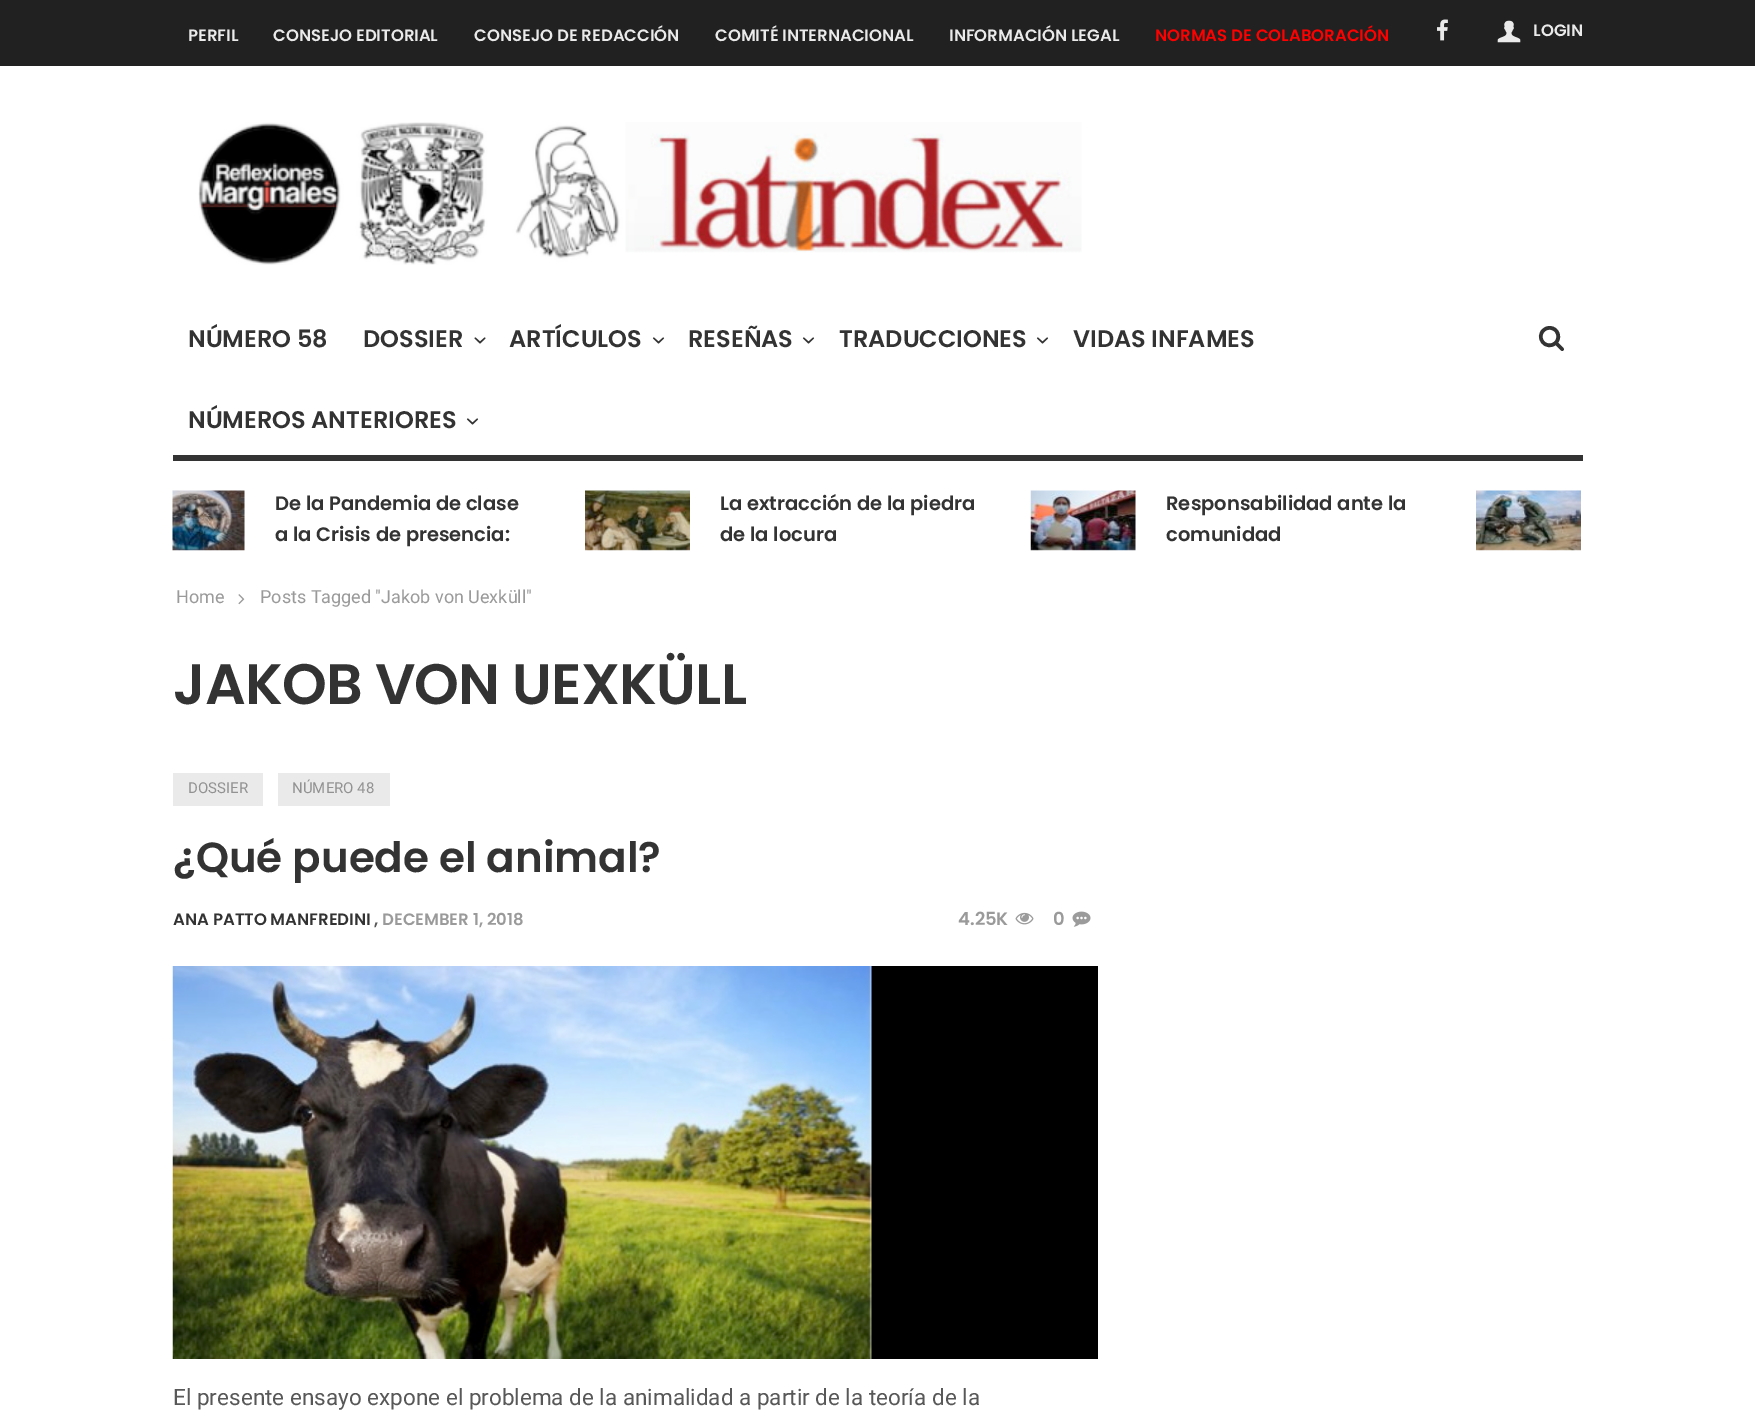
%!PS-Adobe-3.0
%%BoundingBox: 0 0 1755 1419
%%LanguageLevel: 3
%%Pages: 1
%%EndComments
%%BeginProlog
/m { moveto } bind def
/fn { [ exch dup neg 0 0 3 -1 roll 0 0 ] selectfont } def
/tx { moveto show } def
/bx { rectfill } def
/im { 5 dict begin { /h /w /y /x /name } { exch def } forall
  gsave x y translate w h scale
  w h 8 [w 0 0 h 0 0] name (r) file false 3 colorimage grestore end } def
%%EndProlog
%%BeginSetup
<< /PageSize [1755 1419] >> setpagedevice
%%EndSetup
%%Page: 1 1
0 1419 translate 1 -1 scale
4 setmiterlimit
1 setgray
0 0 1755 1419 bx
0.129 setgray
0 0 1755 66 bx
/Poppins-SemiBold 16.5 fn
0.918 setgray
(PERFIL) 188 41 tx
(CONSEJO EDITORIAL) 273 41 tx
(CONSEJO DE REDACCIÓN) 474 41 tx
(COMITÉ INTERNACIONAL) 715 41 tx
(INFORMACIÓN LEGAL) 949 41 tx
1 0 0 setrgbcolor
(NORMAS DE COLABORACIÓN) 1155 41 tx
(image0.raw) 1437 19 11 22 im
(image1.raw) 1497 20 24 23 im
0.918 setgray
(LOGIN) 1533 36 tx
(image2.raw) 198 122 884 143 im
0.2 setgray
173 455 1410 6 bx
/Poppins-SemiBold 24 fn
(NÚMERO 58) 188 347 tx
(DOSSIER) 363 347 tx
(image3.raw) 474 337 12 7 im
(ARTÍCULOS) 509 347 tx
(image4.raw) 652 337 13 7 im
(RESEÑAS) 688 347 tx
(image4.raw) 802 337 13 7 im
(TRADUCCIONES) 839 347 tx
(image4.raw) 1036 337 13 7 im
(VIDAS INFAMES) 1073 347 tx
(NÚMEROS ANTERIORES) 188 428 tx
(image4.raw) 466 418 13 7 im
/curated-Regular 27 fn
(2) 1538 351 tx
(image5.raw) 172 490 73 61 im
/Poppins-SemiBold 19.5 fn
(De la Pandemia de clase) 275 510 tx
(a la Crisis de presencia:) 275 541 tx
(image6.raw) 585 490 105 61 im
(La extracción de la piedra) 720 510 tx
(de la locura) 720 541 tx
(image7.raw) 1030 490 106 61 im
(Responsabilidad ante la) 1166 510 tx
(comunidad) 1166 541 tx
(image8.raw) 1476 490 105 61 im
/Roboto-Regular 18 fn
0.604 setgray
(Home) 176 603 tx
(image9.raw) 238 594 7 11 im
(Posts Tagged "Jakob von Uexküll") 260 603 tx
/Poppins-SemiBold 57 fn
0.2 setgray
173 704 m -0.75 0 (JAKOB VON UEXKÜLL) ashow
0.918 setgray
173 773 90 33 bx
/Roboto-Regular 15 fn
0.576 0.573 0.573 setrgbcolor
(DOSSIER) 188 793 tx
0.918 setgray
278 773 112 33 bx
0.576 0.573 0.573 setrgbcolor
(NÚMERO 48) 292 793 tx
/Poppins-SemiBold 42 fn
0.2 setgray
(¿Qué puede el animal?) 173 872 tx
/Poppins-SemiBold 16.5 fn
(ANA PATTO MANFREDINI) 173 925 tx
0.349 0.345 0.345 setrgbcolor
(,) 374 925 tx
0.604 setgray
(DECEMBER 1, 2018) 382 925 tx
/Poppins-SemiBold 18 fn
(4.25K) 958 925 tx
(image10.raw) 1015 912 19 13 im
(0) 1053 925 tx
(image11.raw) 1072 911 19 16 im
0 setgray
871 966 227 393 bx
(image12.raw) 172 966 700 393 im
/Roboto-Regular 22.5 fn
0.349 0.345 0.345 setrgbcolor
(El presente ensayo expone el problema de la animalidad a partir de la teoría de la) 173 1405 tx
showpage
%%EOF
